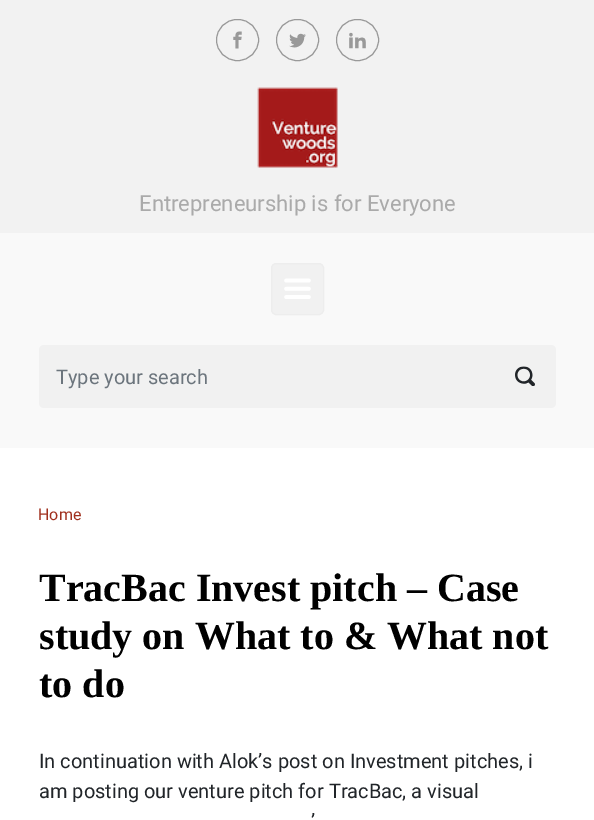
%!PS-Adobe-3.0
%%BoundingBox: 0 0 594 820
%%LanguageLevel: 3
%%Pages: 1
%%EndComments
%%BeginProlog
/f { fill } bind def
/S { stroke } bind def
/q { gsave } bind def
/Q { grestore } bind def
/fn { [ exch dup neg 0 0 3 -1 roll 0 0 ] selectfont } def
/tx { moveto show } def
/bx { rectfill } def
/rr { 5 dict begin { /r /h /w /y /x } { exch def } forall
  x r add y moveto x w add y 2 copy h add r arct x w add y h add x 1 index r arct
  x y h add x y r arct x y 2 copy exch w add exch r arct closepath end } def
/im { 5 dict begin { /h /w /y /x /name } { exch def } forall
  gsave x y translate w h scale
  w h 8 [w 0 0 h 0 0] name (r) file false 3 colorimage grestore end } def
%%EndProlog
%%BeginSetup
<< /PageSize [594 820] >> setpagedevice
%%EndSetup
%%Page: 1 1
0 820 translate 1 -1 scale
4 setmiterlimit
0.976 setgray
0 0 594 820 bx
0.949 setgray
0 0 594 233 bx
0.6 setgray
216.5 19.5 42 41 20.5 rr S
(image0.raw) 233 31 9 18 im
276.5 19.5 42 41 20.5 rr S
(image1.raw) 289 33 17 15 im
336.5 19.5 42 41 20.5 rr S
(image2.raw) 349 32 17 17 im
(image3.raw) 257 87 81 81 im
/Roboto-Regular 22 fn
0.667 setgray
(Entrepreneurship is for Everyone) 139 211 tx
0.945 setgray
271.5 263.5 52 51 4.5 rr q f Q
0.929 setgray
S
(image4.raw) 284 278 27 21 im
0.945 setgray
39 345 517 63 5 rr f
/Roboto-Regular 20 fn
0.424 0.459 0.49 setrgbcolor
(Type your search) 56 384 tx
(image5.raw) 515 366 20 20 im
1 setgray
0 448 594 372 bx
/Roboto-Regular 16 fn
0.627 0.188 0.118 setrgbcolor
(Home) 38 520 tx
/LiberationSerif-Bold 40 fn
0 setgray
(TracBac Invest pitch – Case) 39 601 tx
(study on What to & What not) 39 649 tx
(to do) 39 697 tx
/Roboto-Regular 20 fn
0.129 0.145 0.161 setrgbcolor
(In continuation with Alok’s post on Investment pitches, i) 39 768 tx
(am posting our venture pitch for TracBac, a visual) 39 798 tx
(’) 311 828 tx
showpage
%%EOF
